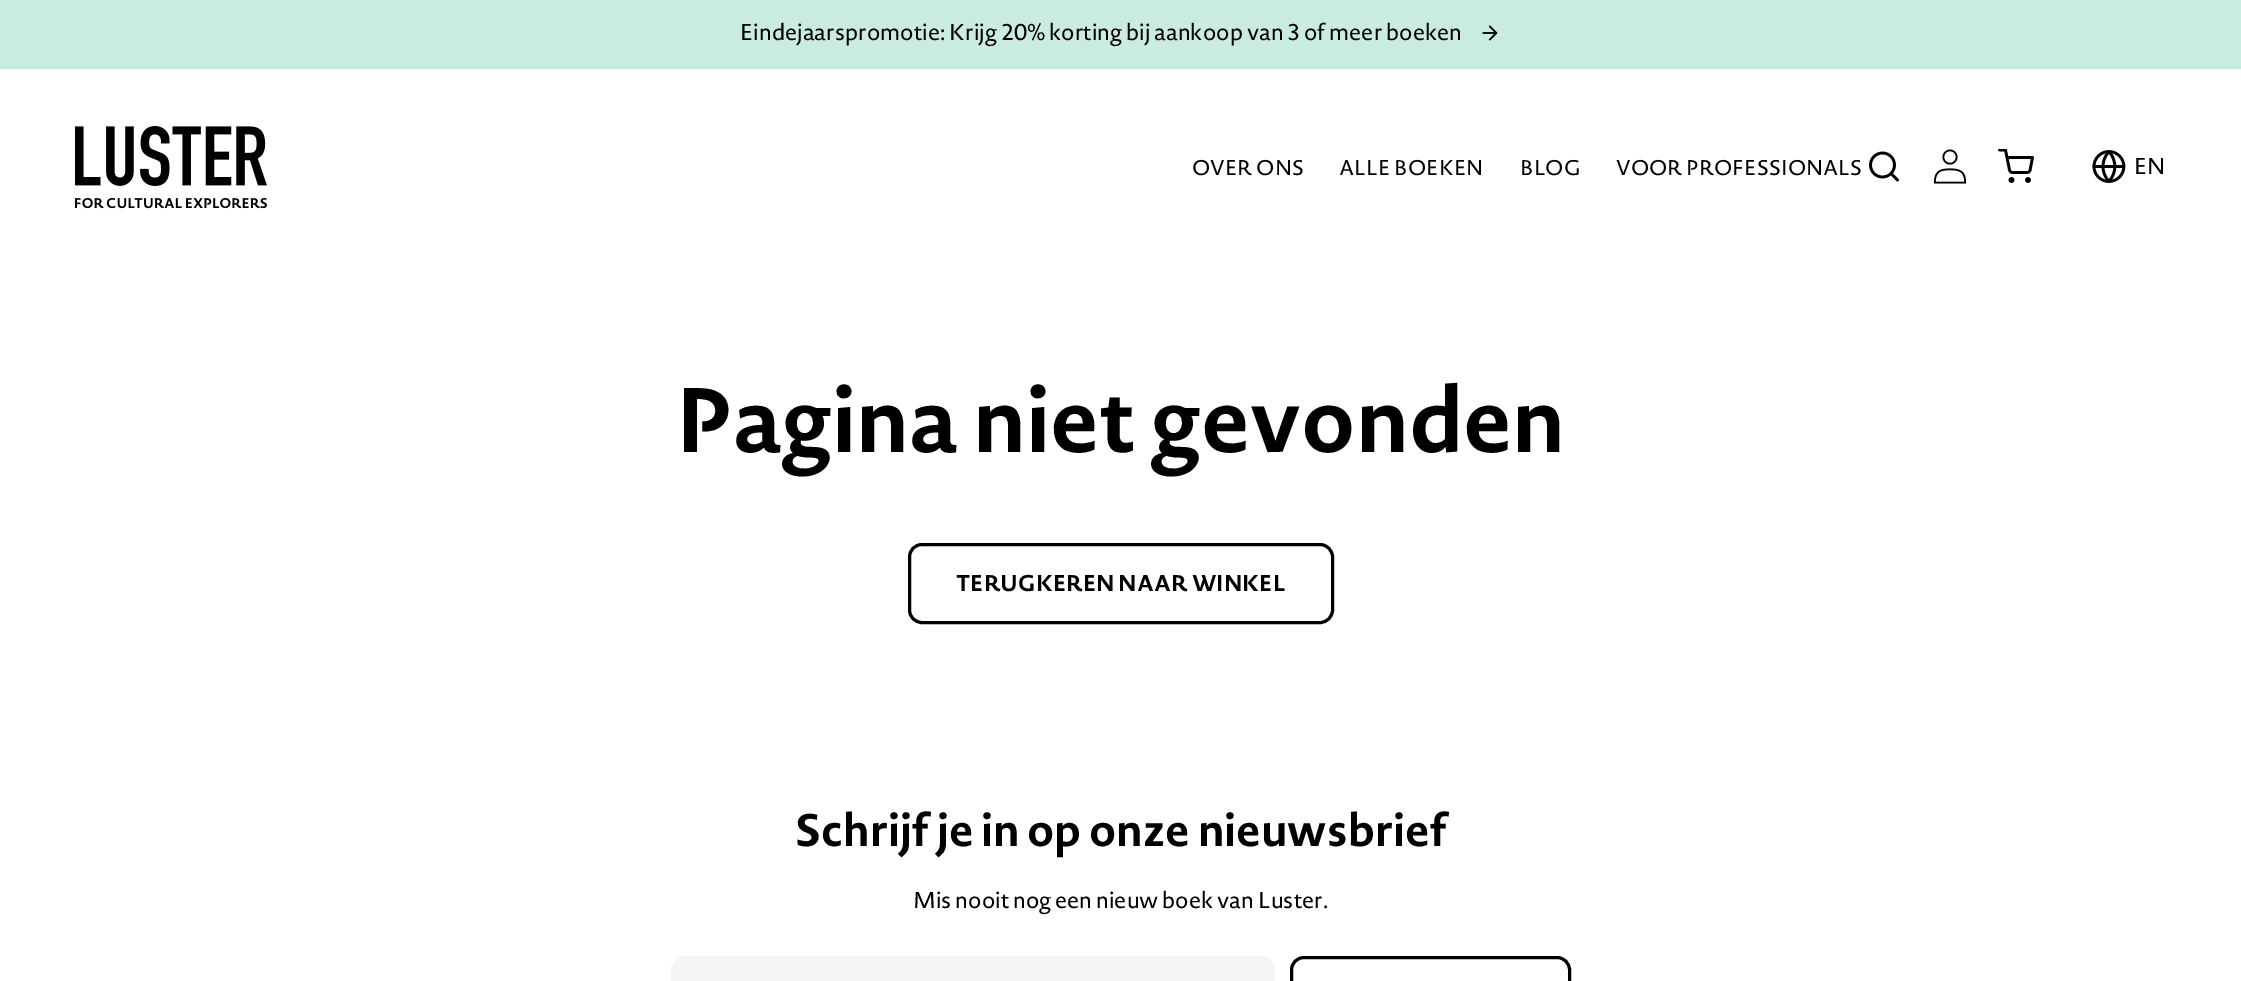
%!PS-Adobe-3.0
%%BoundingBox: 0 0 2241 981
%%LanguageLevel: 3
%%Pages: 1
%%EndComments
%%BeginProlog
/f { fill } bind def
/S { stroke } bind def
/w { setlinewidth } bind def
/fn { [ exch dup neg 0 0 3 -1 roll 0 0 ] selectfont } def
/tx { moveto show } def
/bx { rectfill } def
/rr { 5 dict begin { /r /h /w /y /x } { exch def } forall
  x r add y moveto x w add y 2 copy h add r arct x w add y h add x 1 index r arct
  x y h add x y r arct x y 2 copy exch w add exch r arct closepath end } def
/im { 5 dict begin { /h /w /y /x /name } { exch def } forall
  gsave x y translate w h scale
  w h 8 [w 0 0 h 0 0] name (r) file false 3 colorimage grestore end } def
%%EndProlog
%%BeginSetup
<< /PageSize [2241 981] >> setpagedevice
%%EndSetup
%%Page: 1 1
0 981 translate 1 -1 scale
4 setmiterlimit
1 setgray
0 0 2241 981 bx
0.792 0.922 0.886 setrgbcolor
0 0 2241 69 bx
/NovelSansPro-Regular 22.5 fn
0 setgray
(Eindejaarspromotie: Krijg 20% korting bij aankoop van 3 of meer boeken) 740 40 tx
(image0.raw) 1482 25 16 16 im
(image1.raw) 75 126 192 83 im
/NovelSansPro-Regular 21 fn
(OVER ONS) 1192 175 tx
(ALLE BOEKEN) 1339 175 tx
(BLOG) 1520 175 tx
(VOOR PROFESSIONALS) 1616 175 tx
(image2.raw) 1869 151 30 31 im
(image3.raw) 1933 149 34 35 im
(image4.raw) 1998 149 36 34 im
(image5.raw) 2092 150 34 33 im
/NovelSansPro-Regular 22.5 fn
(EN) 2134 174 tx
/NovelSansPro-Bold 90 fn
(Pagina niet gevonden) 676 452 tx
3 w
909.5 544.5 423 78 12.5 rr S
/NovelSansPro-Bold 22.5 fn
(TERUGKEREN NAAR WINKEL) 956 591 tx
/NovelSansPro-Bold 45 fn
(Schrijf je in op onze nieuwsbrief) 795 846 tx
/NovelSansPro-Regular 22.5 fn
(Mis nooit nog een nieuw boek van Luster.) 913 908 tx
0.961 setgray
671 956 604 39 14 rr f
0 setgray
1291.5 957.5 278 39 12.5 rr S
showpage
%%EOF
